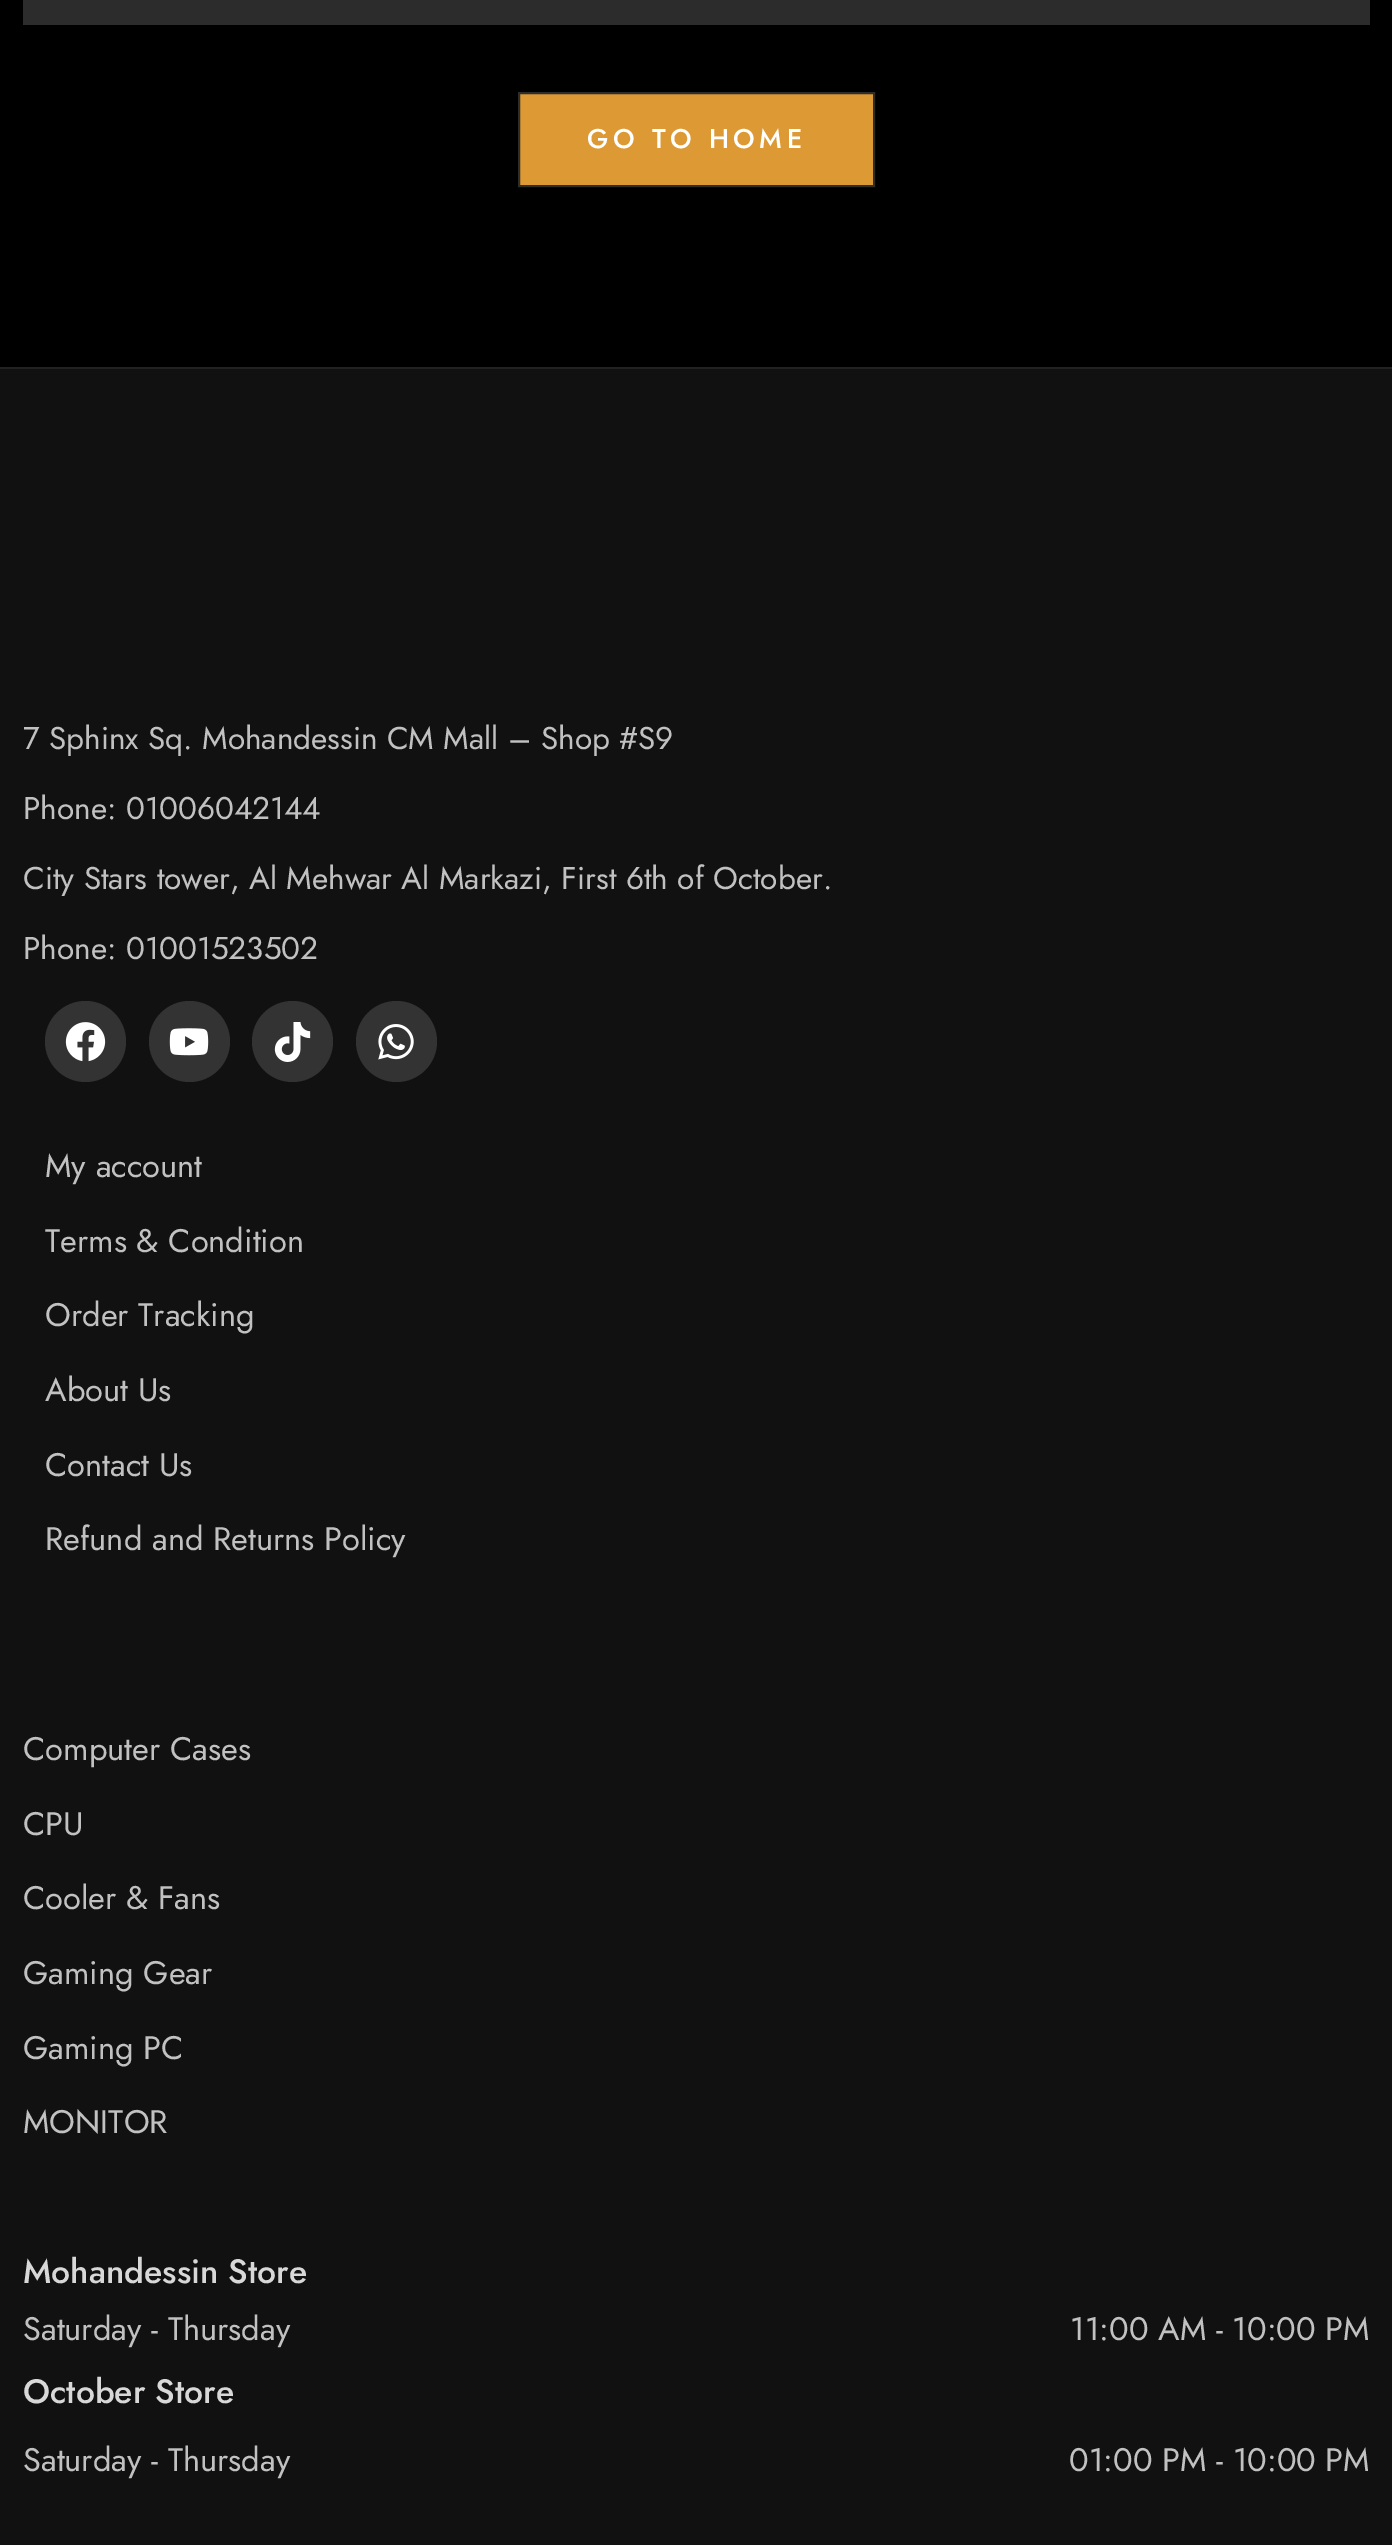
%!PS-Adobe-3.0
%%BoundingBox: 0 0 1392 2545
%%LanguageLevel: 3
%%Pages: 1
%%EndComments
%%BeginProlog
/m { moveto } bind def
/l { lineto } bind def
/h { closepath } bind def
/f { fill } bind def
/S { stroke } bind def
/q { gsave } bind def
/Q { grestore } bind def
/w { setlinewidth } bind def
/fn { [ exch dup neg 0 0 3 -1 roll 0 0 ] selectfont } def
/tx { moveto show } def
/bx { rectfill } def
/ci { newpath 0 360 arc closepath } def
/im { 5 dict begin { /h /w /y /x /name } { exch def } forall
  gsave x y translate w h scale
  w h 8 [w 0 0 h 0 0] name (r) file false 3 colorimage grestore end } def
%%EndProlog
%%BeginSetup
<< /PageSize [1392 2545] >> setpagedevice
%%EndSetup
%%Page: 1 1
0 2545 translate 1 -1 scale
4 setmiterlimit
0 setgray
0 0 1392 2545 bx
0.173 setgray
23 0 1347 25 bx
0.867 0.6 0.2 setrgbcolor
519 93 m 874 93 l 874 186 l 519 186 l h q f Q
0.176 setgray
2 w
S
/Jost-Medium 27 fn
1 setgray
587 148 m 4.5 0 (GO TO HOME) ashow
0.067 setgray
0 369 1392 2176 bx
0.133 setgray
0 367 1392 2 bx
/Jost-Regular 31.5 fn
0.757 setgray
(7 Sphinx Sq. Mohandessin CM Mall – Shop #S9) 23 749 tx
(Phone: 01006042144) 23 819 tx
(City Stars tower, Al Mehwar Al Markazi, First 6th of October.) 23 889 tx
(Phone: 01001523502) 23 959 tx
0.2 setgray
85.5 1041.5 40.5 ci f
(image0.raw) 65 1022 41 40 im
189.5 1041.5 40.5 ci f
(image1.raw) 169 1028 40 28 im
292.5 1041.5 40.5 ci f
(image2.raw) 274 1022 37 40 im
396.5 1041.5 40.5 ci f
(image3.raw) 378 1024 36 36 im
/Jost-Regular 32.6 fn
0.757 setgray
(My account) 45 1177 tx
(Terms & Condition) 45 1252 tx
(Order Tracking) 45 1326 tx
(About Us) 45 1401 tx
(Contact Us) 45 1476 tx
(Refund and Returns Policy) 45 1550 tx
(Computer Cases) 23 1760 tx
(CPU) 23 1835 tx
(Cooler & Fans) 23 1909 tx
(Gaming Gear) 23 1984 tx
(Gaming PC) 23 2059 tx
(MONITOR) 23 2133 tx
/Jost-Medium 33.75 fn
0.847 setgray
(Mohandessin Store) 23 2283 tx
/Jost-Regular 32.6 fn
0.757 setgray
(Saturday - Thursday) 23 2340 tx
(11:00 AM - 10:00 PM) 1070 2340 tx
/Jost-Medium 33.75 fn
0.847 setgray
(October Store) 23 2403 tx
/Jost-Regular 32.6 fn
0.757 setgray
(Saturday - Thursday) 23 2471 tx
(01:00 PM - 10:00 PM) 1069 2471 tx
showpage
%%EOF
